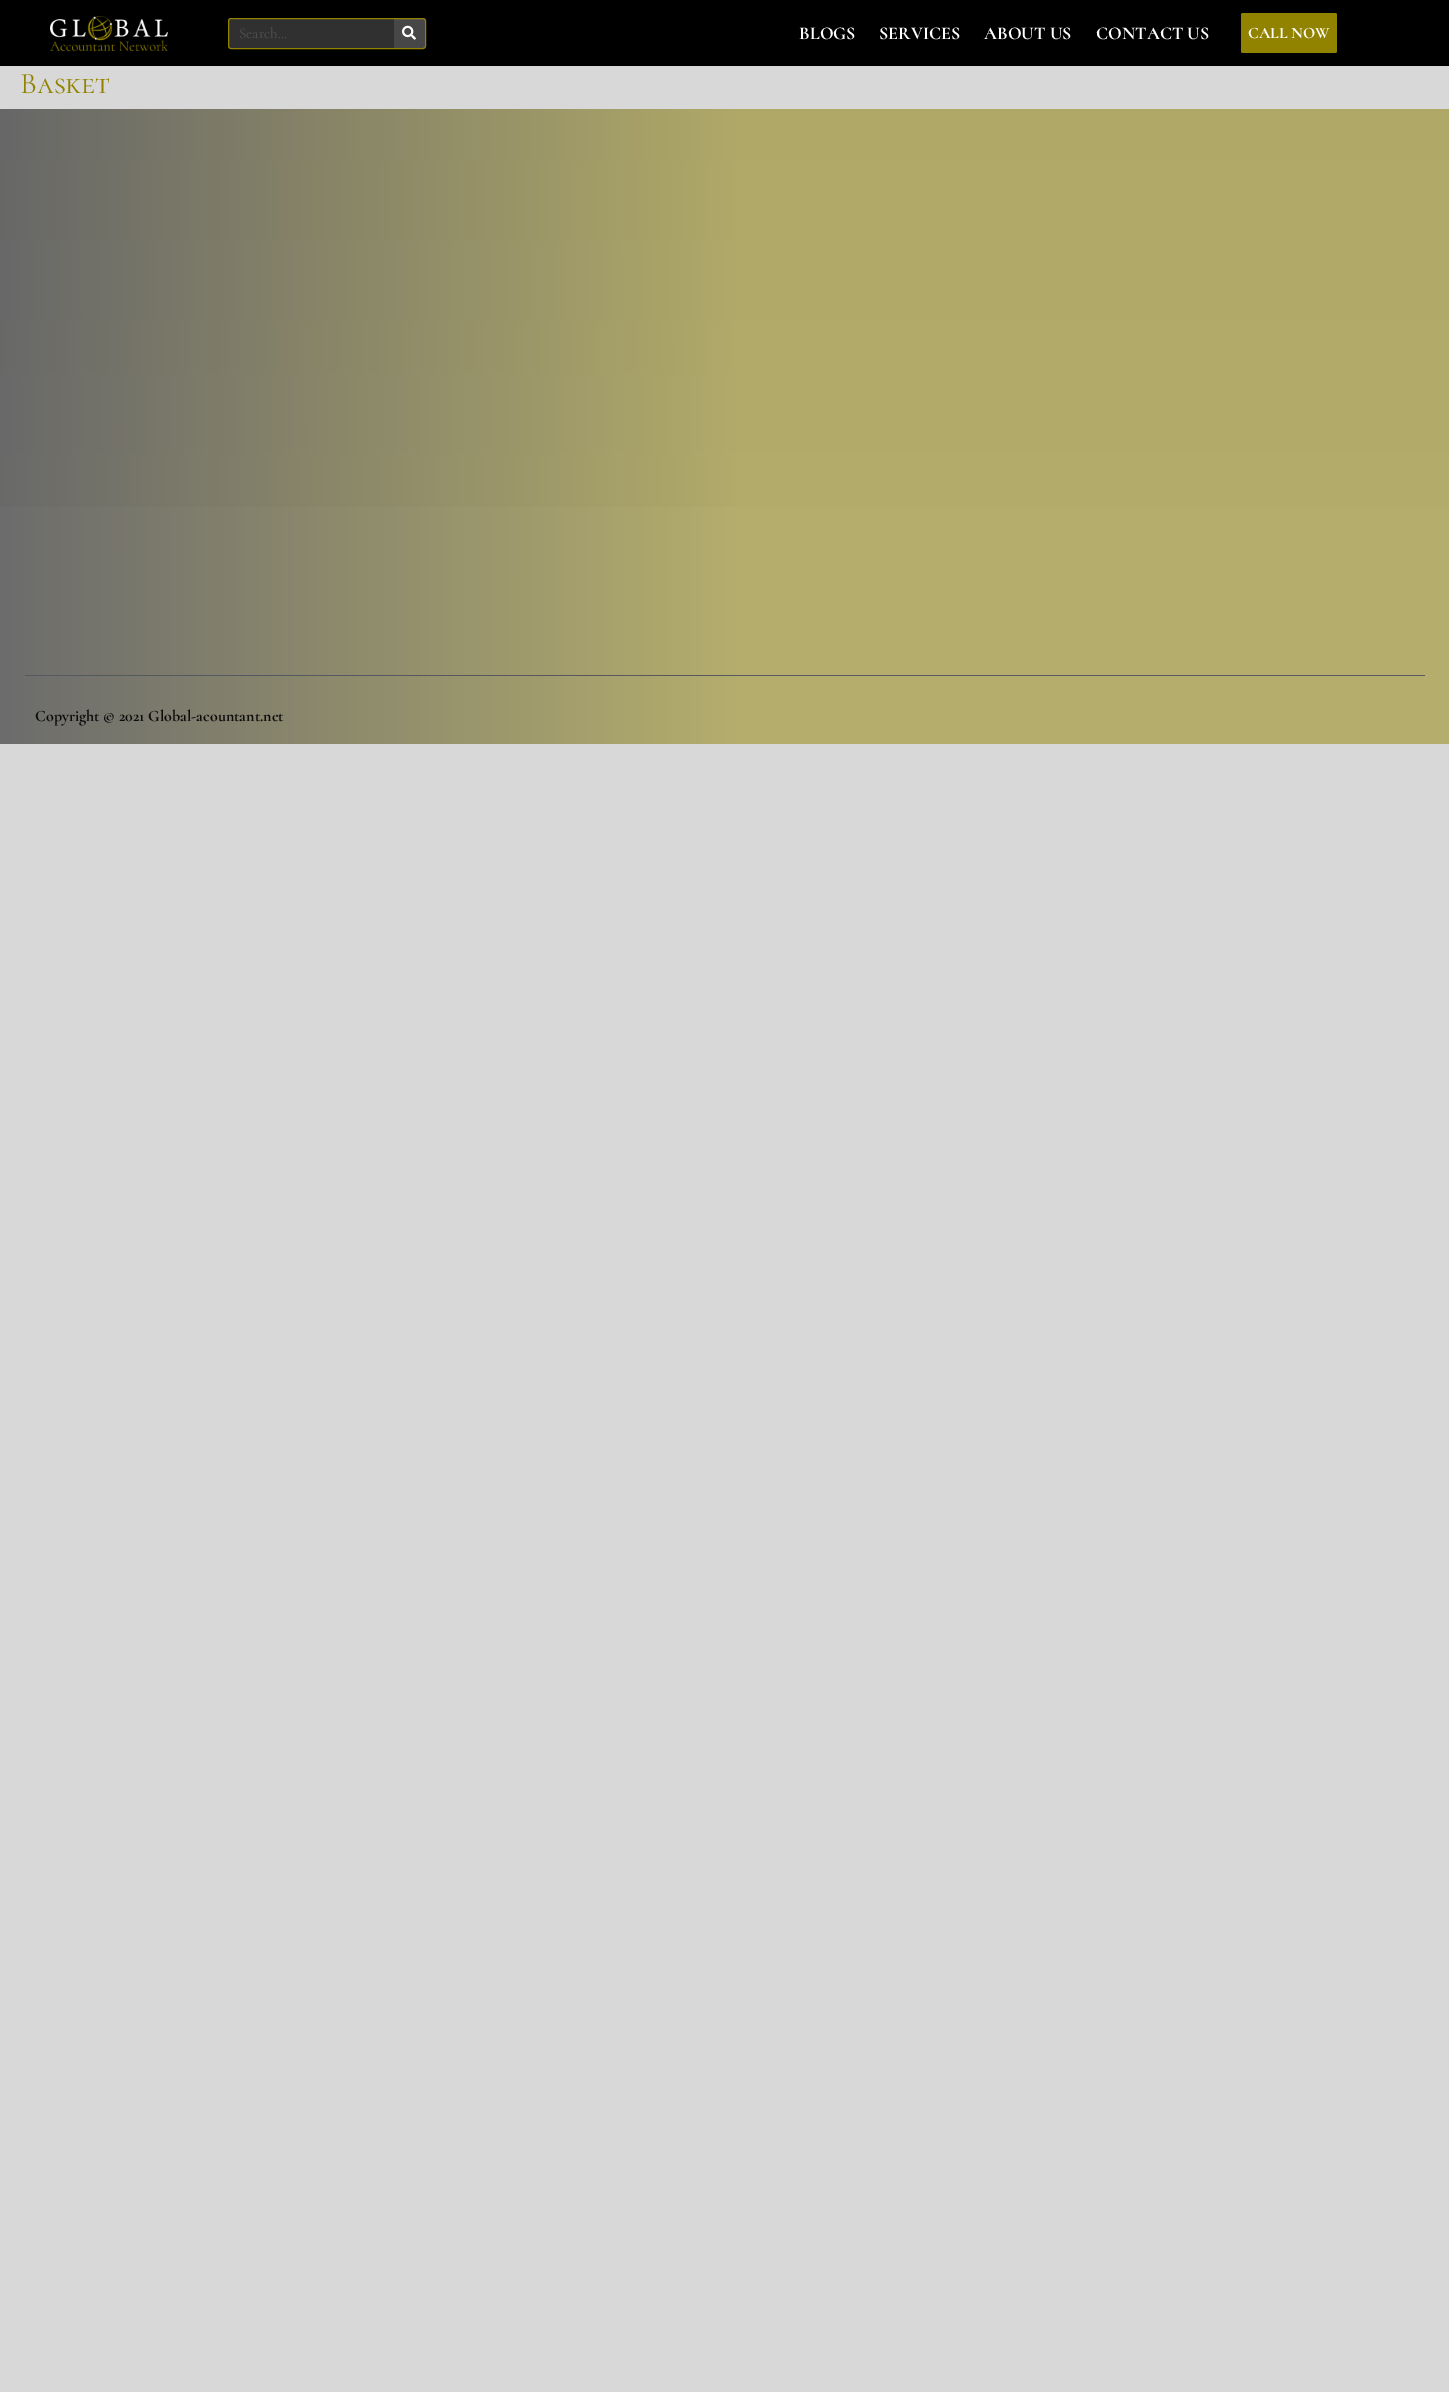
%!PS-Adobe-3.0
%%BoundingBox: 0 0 1449 2392
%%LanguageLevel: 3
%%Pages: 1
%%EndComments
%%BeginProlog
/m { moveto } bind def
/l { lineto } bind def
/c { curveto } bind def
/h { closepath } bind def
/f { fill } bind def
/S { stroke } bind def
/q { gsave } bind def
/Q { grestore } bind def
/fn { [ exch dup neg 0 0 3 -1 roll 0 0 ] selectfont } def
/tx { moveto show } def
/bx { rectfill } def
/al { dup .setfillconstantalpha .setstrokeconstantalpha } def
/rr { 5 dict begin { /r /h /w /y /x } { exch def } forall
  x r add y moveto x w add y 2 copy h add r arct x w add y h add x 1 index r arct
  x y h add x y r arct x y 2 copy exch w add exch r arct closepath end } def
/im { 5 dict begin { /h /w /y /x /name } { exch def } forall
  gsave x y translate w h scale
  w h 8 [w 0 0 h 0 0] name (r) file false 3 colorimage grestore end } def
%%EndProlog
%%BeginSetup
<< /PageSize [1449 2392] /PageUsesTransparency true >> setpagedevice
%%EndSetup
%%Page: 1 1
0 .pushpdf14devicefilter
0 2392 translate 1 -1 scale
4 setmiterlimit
0.847 setgray
0 0 1449 2392 bx
0 setgray
0 0 1449 66 bx
(image0.raw) 50 16 118 35 im
0.188 setgray
228.5 18.5 197 30 2.5 rr q f Q
0.569 0.514 0 setrgbcolor
S
/Cormorant-Regular 15 fn
0.314 setgray
(Search...) 239 38 tx
0.11 al
1 setgray
394 19 m 423 19 l 424 19 425 20 425 21 c 425 46 l 425 47 424 48 423 48 c 394 48 l h f
1 al
(image1.raw) 402 25 14 15 im
/Cormorant-Bold 18 fn
(BLOGS) 799 39 tx
(SERVICES) 879 39 tx
(ABOUT US) 984 39 tx
(CONTACT US) 1096 39 tx
0.569 0.514 0 setrgbcolor
1241 13 96 40 2 rr f
/Cormorant-Bold 16 fn
1 setgray
(CALL NOW) 1248 38 tx
/CormorantSC-Regular 30 fn
0.569 0.514 0 setrgbcolor
(Basket) 20 93 tx
(image2.raw) 0 109 1449 398 im
0.5 al
q 0 109 m 1449 109 l 1449 744 l 0 744 l h clip newpath
<< /ShadingType 2 /ColorSpace /DeviceRGB /Coords [0 427 1449 426] /Extend [true true] /Function << /FunctionType 3 /Domain [0 1] /Functions [<< /FunctionType 2 /Domain [0 1] /C0 [0 0 0] /C1 [0.569 0.514 0] /N 1 >> << /FunctionType 2 /Domain [0 1] /C0 [0.569 0.514 0] /C1 [0.569 0.514 0] /N 1 >>] /Bounds [0.51] /Encode [0 1 0 1] >> >> shfill Q
1 al
0.329 0.349 0.373 setrgbcolor
25 675 1400 1 bx
/Cormorant-Bold 16 fn
0.051 0.047 0.047 setrgbcolor
(Copyright © 2021 Global-acountant.net) 35 721 tx
.poppdf14devicefilter showpage
%%EOF
